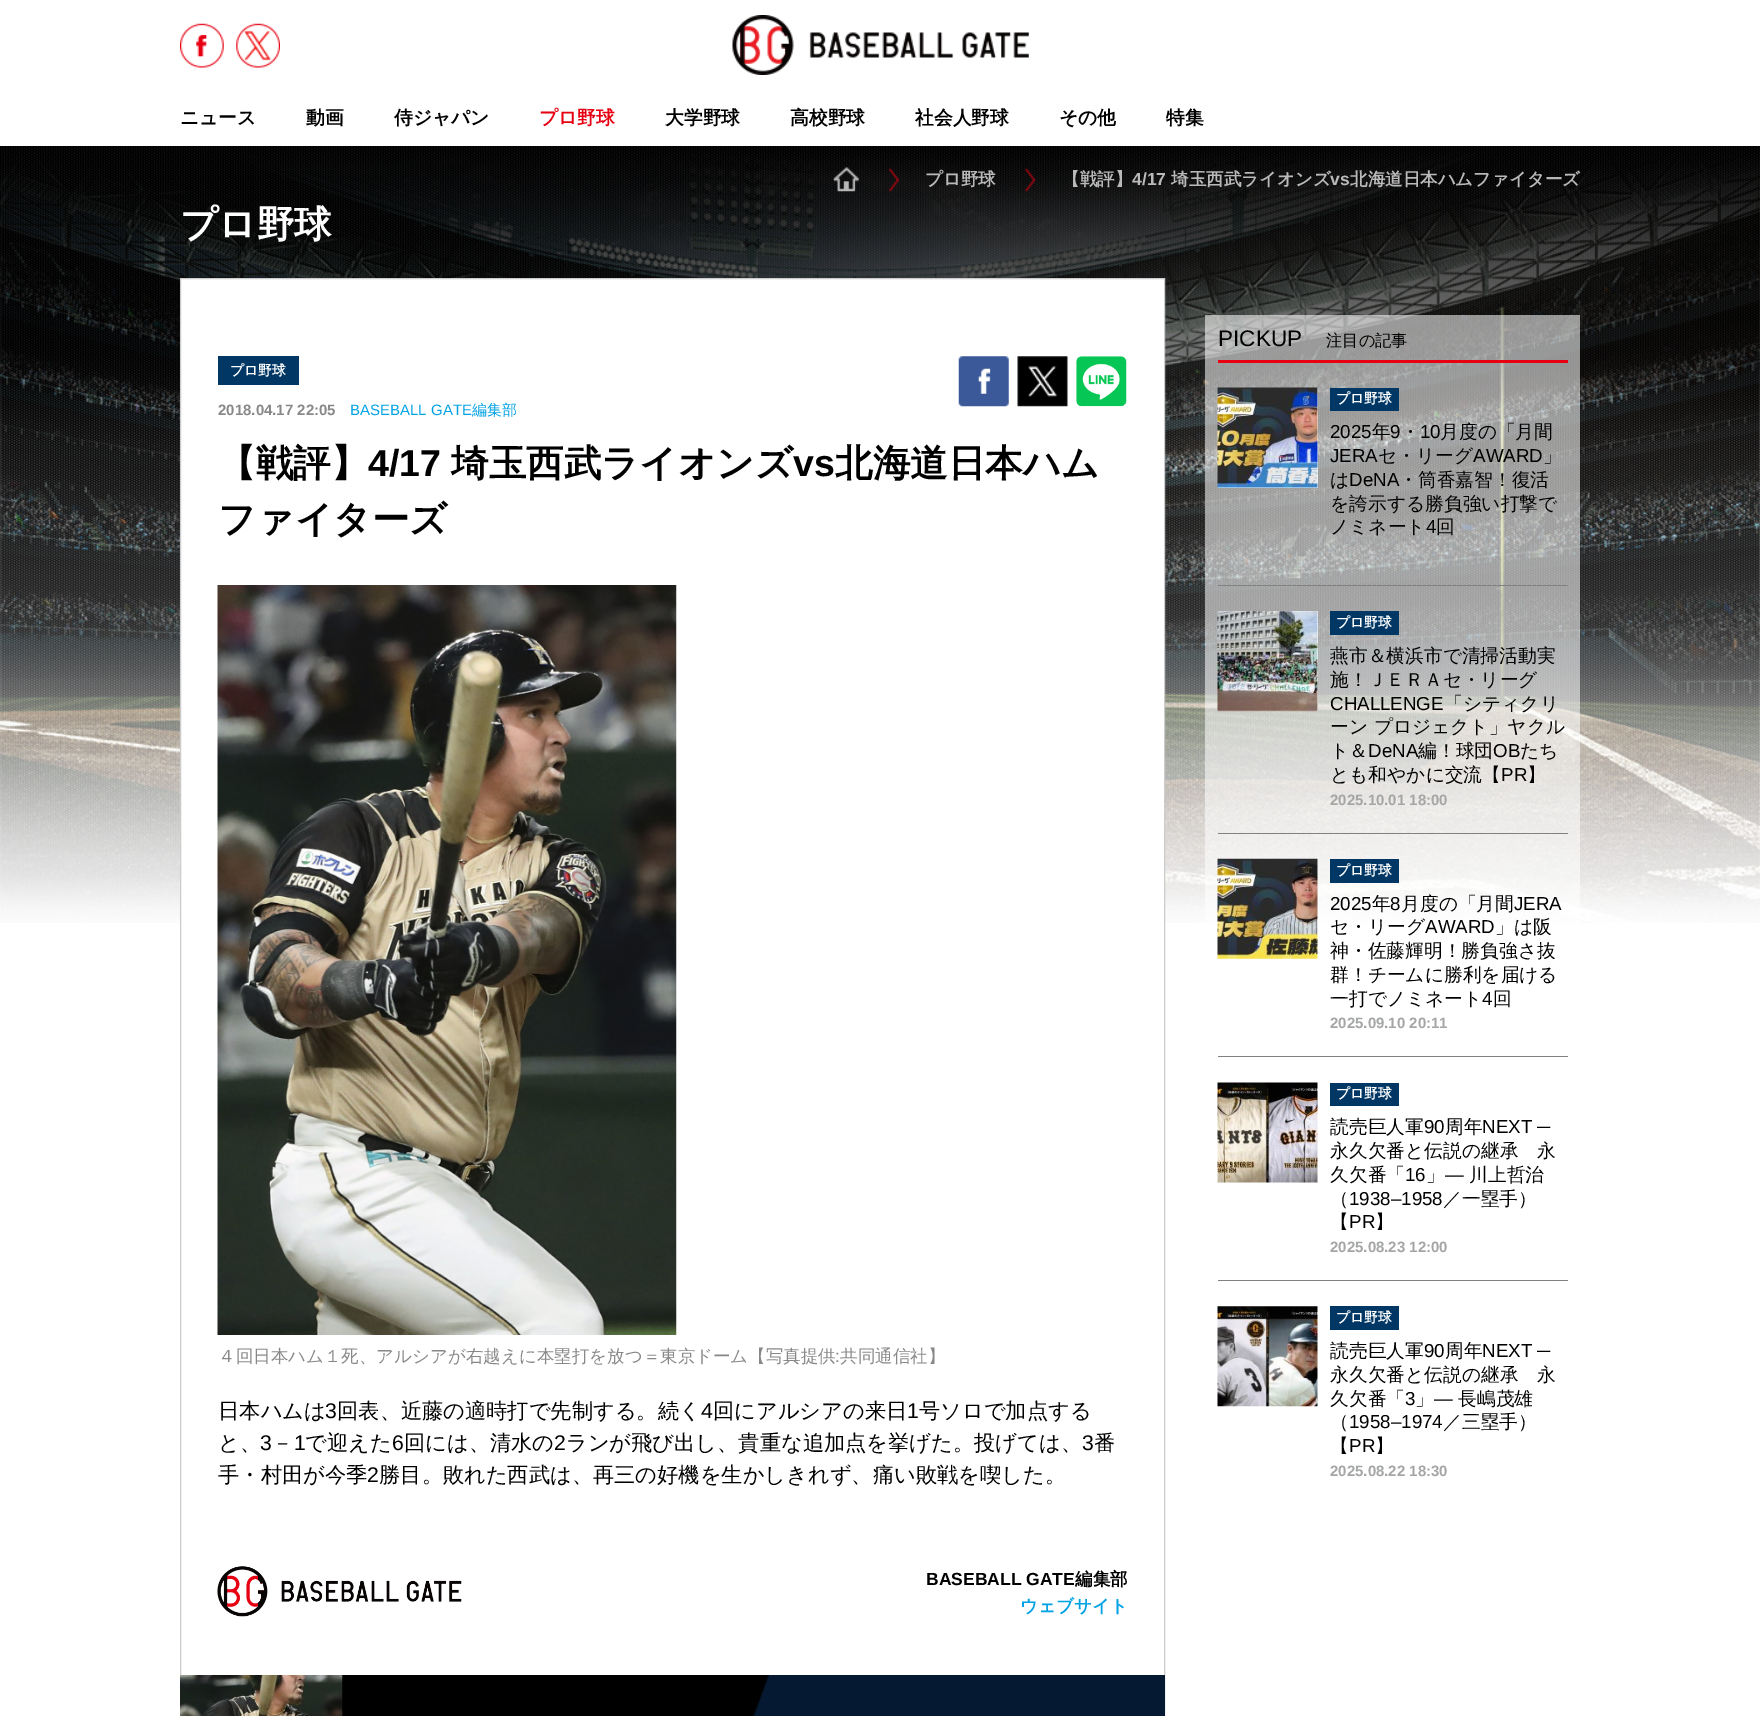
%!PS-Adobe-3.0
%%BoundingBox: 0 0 1760 1716
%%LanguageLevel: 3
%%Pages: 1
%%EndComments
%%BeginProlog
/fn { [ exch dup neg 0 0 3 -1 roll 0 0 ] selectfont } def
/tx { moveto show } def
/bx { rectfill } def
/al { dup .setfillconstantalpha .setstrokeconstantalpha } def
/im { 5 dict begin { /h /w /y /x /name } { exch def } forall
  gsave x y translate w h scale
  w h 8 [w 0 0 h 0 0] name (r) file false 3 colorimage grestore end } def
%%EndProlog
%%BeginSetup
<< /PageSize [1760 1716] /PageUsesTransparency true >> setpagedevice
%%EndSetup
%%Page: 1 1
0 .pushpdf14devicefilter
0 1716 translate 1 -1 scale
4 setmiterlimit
1 setgray
0 0 1760 1716 bx
(image0.raw) 0 146 1760 777 im
(image1.raw) 180 23 44 45 im
(image2.raw) 236 23 44 45 im
(image3.raw) 732 15 297 60 im
/WenQuanYiZenHei-Bold 18.75 fn
0 setgray
(ニュース) 180 124 tx
(動画) 306 124 tx
(侍ジャパン) 394 124 tx
0.902 0 0.071 setrgbcolor
(プロ野球) 539 124 tx
0 setgray
(大学野球) 665 124 tx
(高校野球) 790 124 tx
(社会人野球) 915 124 tx
(その他) 1059 124 tx
(特集) 1166 124 tx
(image4.raw) 0 146 1760 740 im
(image5.raw) 833 167 26 25 im
(image6.raw) 888 168 12 24 im
/WenQuanYiZenHei-Bold 17.5 fn
0.725 setgray
(プロ野球) 925 185 tx
(image7.raw) 1025 168 11 24 im
(【戦評】) 1062 185 tx
/LiberationSans-Bold 17.5 fn
(4/17) 1132 185 tx
/WenQuanYiZenHei-Bold 17.5 fn
(埼玉西武ライオンズ) 1171 185 tx
/LiberationSans-Bold 17.5 fn
(vs) 1330 185 tx
/WenQuanYiZenHei-Bold 17.5 fn
(北海道日本ハムファイターズ) 1350 185 tx
/WenQuanYiZenHei-Bold 37.5 fn
1 setgray
(プロ野球) 180 237 tx
181 279 983 644 bx
0.8 setgray
180.5 278.5 984 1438 rectstroke
0 0.216 0.392 setrgbcolor
218 356 81 29 bx
/WenQuanYiZenHei-Bold 13.75 fn
1 setgray
(プロ野球) 230 375 tx
(image8.raw) 958 356 51 51 im
(image9.raw) 1017 356 51 51 im
(image10.raw) 1076 356 51 51 im
/LiberationSans-Bold 15 fn
0.533 setgray
(2018.04.17 22:05) 218 415 tx
/LiberationSans-Regular 15 fn
0 0.635 0.894 setrgbcolor
(BASEBALL GATE) 350 415 tx
/WenQuanYiZenHei-Medium 15 fn
(編集部) 472 415 tx
/WenQuanYiZenHei-Bold 37.5 fn
0 setgray
(【戦評】) 218 476 tx
/LiberationSans-Bold 37.5 fn
(4/17) 368 476 tx
/WenQuanYiZenHei-Bold 37.5 fn
(埼玉西武ライオンズ) 451 476 tx
/LiberationSans-Bold 37.5 fn
(vs) 793 476 tx
/WenQuanYiZenHei-Bold 37.5 fn
(北海道日本ハム) 835 476 tx
(ファイターズ) 218 532 tx
(image11.raw) 217 585 460 750 im
/WenQuanYiZenHei-Medium 17.5 fn
0.533 setgray
(４回日本ハム１死、アルシアが右越えに本塁打を放つ＝東京ドーム【写真提供) 218 1362 tx
/LiberationSans-Regular 17.5 fn
(:) 835 1362 tx
/WenQuanYiZenHei-Medium 17.5 fn
(共同通信社】) 840 1362 tx
/WenQuanYiZenHei-Medium 21.25 fn
0 setgray
(日本ハムは) 218 1418 tx
/LiberationSans-Regular 21.25 fn
(3) 325 1418 tx
/WenQuanYiZenHei-Medium 21.25 fn
(回表、近藤の適時打で先制する。続く) 337 1418 tx
/LiberationSans-Regular 21.25 fn
(4) 701 1418 tx
/WenQuanYiZenHei-Medium 21.25 fn
(回にアルシアの来日) 713 1418 tx
/LiberationSans-Regular 21.25 fn
(1) 907 1418 tx
/WenQuanYiZenHei-Medium 21.25 fn
(号ソロで加点する) 919 1418 tx
(と、) 218 1450 tx
/LiberationSans-Regular 21.25 fn
(3) 260 1450 tx
/WenQuanYiZenHei-Medium 21.25 fn
(－) 272 1450 tx
/LiberationSans-Regular 21.25 fn
(1) 294 1450 tx
/WenQuanYiZenHei-Medium 21.25 fn
(で迎えた) 305 1450 tx
/LiberationSans-Regular 21.25 fn
(6) 392 1450 tx
/WenQuanYiZenHei-Medium 21.25 fn
(回には、清水の) 404 1450 tx
/LiberationSans-Regular 21.25 fn
(2) 554 1450 tx
/WenQuanYiZenHei-Medium 21.25 fn
(ランが飛び出し、貴重な追加点を挙げた。投げては、) 566 1450 tx
/LiberationSans-Regular 21.25 fn
(3) 1082 1450 tx
/WenQuanYiZenHei-Medium 21.25 fn
(番) 1094 1450 tx
(手・村田が今季) 218 1482 tx
/LiberationSans-Regular 21.25 fn
(2) 367 1482 tx
/WenQuanYiZenHei-Medium 21.25 fn
(勝目。敗れた西武は、再三の好機を生かしきれず、痛い敗戦を喫した。) 379 1482 tx
(image12.raw) 217 1566 245 51 im
/LiberationSans-Bold 17.5 fn
(BASEBALL GATE) 926 1585 tx
/WenQuanYiZenHei-Bold 17.5 fn
(編集部) 1075 1585 tx
0 0.635 0.894 setrgbcolor
(ウェブサイト) 1020 1612 tx
(image13.raw) 342 1675 823 41 im
(image14.raw) 180 1675 163 41 im
0.56 al
1 setgray
1205 315 375 608 bx
1 al
0.902 0 0.071 setrgbcolor
1218 360 350 3 bx
/LiberationSans-Regular 22.5 fn
0 setgray
(PICKUP) 1218 346 tx
/WenQuanYiZenHei-Medium 16.25 fn
(注目の記事) 1326 346 tx
1 setgray
1218 388 100 100 bx
(image15.raw) 1217 387 101 101 im
0 0.216 0.392 setrgbcolor
1330 388 69 23 bx
/WenQuanYiZenHei-Bold 13.75 fn
1 setgray
(プロ野球) 1336 403 tx
/LiberationSans-Regular 18.75 fn
0 setgray
(2025) 1330 438 tx
/WenQuanYiZenHei-Medium 18.75 fn
(年) 1372 438 tx
/LiberationSans-Regular 18.75 fn
(9) 1390 438 tx
/WenQuanYiZenHei-Medium 18.75 fn
(・) 1401 438 tx
/LiberationSans-Regular 18.75 fn
(10) 1420 438 tx
/WenQuanYiZenHei-Medium 18.75 fn
(月度の「月間) 1440 438 tx
/LiberationSans-Regular 18.75 fn
(JERA) 1330 462 tx
/WenQuanYiZenHei-Medium 18.75 fn
(セ・リーグ) 1378 462 tx
/LiberationSans-Regular 18.75 fn
(AWARD) 1473 462 tx
/WenQuanYiZenHei-Medium 18.75 fn
(」) 1543 462 tx
(は) 1330 486 tx
/LiberationSans-Regular 18.75 fn
(DeNA) 1349 486 tx
/WenQuanYiZenHei-Medium 18.75 fn
(・筒香嘉智！復活) 1399 486 tx
(を誇示する勝負強い打撃で) 1330 510 tx
(ノミネート) 1330 533 tx
/LiberationSans-Regular 18.75 fn
(4) 1426 533 tx
/WenQuanYiZenHei-Medium 18.75 fn
(回) 1436 533 tx
0.502 0.506 0.506 setrgbcolor
1218 585 350 1 bx
1 setgray
1218 611 100 100 bx
(image16.raw) 1217 611 101 101 im
0 0.216 0.392 setrgbcolor
1330 611 69 24 bx
/WenQuanYiZenHei-Bold 13.75 fn
1 setgray
(プロ野球) 1336 627 tx
/WenQuanYiZenHei-Medium 18.75 fn
0 setgray
(燕市＆横浜市で清掃活動実) 1330 662 tx
(施！ＪＥＲＡセ・リーグ) 1330 686 tx
/LiberationSans-Regular 18.75 fn
(CHALLENGE) 1330 710 tx
/WenQuanYiZenHei-Medium 18.75 fn
(「シティクリ) 1444 710 tx
(ーン プロジェクト」ヤクル) 1330 733 tx
(ト＆) 1330 757 tx
/LiberationSans-Regular 18.75 fn
(DeNA) 1368 757 tx
/WenQuanYiZenHei-Medium 18.75 fn
(編！球団) 1418 757 tx
/LiberationSans-Regular 18.75 fn
(OB) 1493 757 tx
/WenQuanYiZenHei-Medium 18.75 fn
(たち) 1520 757 tx
(とも和やかに交流【) 1330 781 tx
/LiberationSans-Regular 18.75 fn
(PR) 1501 781 tx
/WenQuanYiZenHei-Medium 18.75 fn
(】) 1527 781 tx
/LiberationSans-Bold 15 fn
0.643 0.647 0.647 setrgbcolor
(2025.10.01 18:00) 1330 805 tx
0.502 0.506 0.506 setrgbcolor
1218 833 350 1 bx
1 setgray
1218 859 100 59 bx
(image17.raw) 1217 858 101 101 im
0 0.216 0.392 setrgbcolor
1330 859 69 24 bx
/WenQuanYiZenHei-Bold 13.75 fn
1 setgray
(プロ野球) 1336 875 tx
/LiberationSans-Regular 18.75 fn
0 setgray
(2025) 1330 910 tx
/WenQuanYiZenHei-Medium 18.75 fn
(年) 1372 910 tx
/LiberationSans-Regular 18.75 fn
(8) 1390 910 tx
/WenQuanYiZenHei-Medium 18.75 fn
(月度の「月間) 1401 910 tx
/LiberationSans-Regular 18.75 fn
(JERA) 1514 910 tx
/WenQuanYiZenHei-Medium 18.75 fn
(セ・リーグ) 1330 933 tx
/LiberationSans-Regular 18.75 fn
(AWARD) 1425 933 tx
/WenQuanYiZenHei-Medium 18.75 fn
(」は阪) 1495 933 tx
(神・佐藤輝明！勝負強さ抜) 1330 957 tx
(群！チームに勝利を届ける) 1330 981 tx
(一打でノミネート) 1330 1005 tx
/LiberationSans-Regular 18.75 fn
(4) 1482 1005 tx
/WenQuanYiZenHei-Medium 18.75 fn
(回) 1493 1005 tx
/LiberationSans-Bold 15 fn
0.643 0.647 0.647 setrgbcolor
(2025.09.10 20:11) 1330 1028 tx
0.502 0.506 0.506 setrgbcolor
1218 1056 350 1 bx
(image18.raw) 1217 1082 101 101 im
0 0.216 0.392 setrgbcolor
1330 1083 69 23 bx
/WenQuanYiZenHei-Bold 13.75 fn
1 setgray
(プロ野球) 1336 1098 tx
/WenQuanYiZenHei-Medium 18.75 fn
0 setgray
(読売巨人軍) 1330 1133 tx
/LiberationSans-Regular 18.75 fn
(90) 1424 1133 tx
/WenQuanYiZenHei-Medium 18.75 fn
(周年) 1445 1133 tx
/LiberationSans-Regular 18.75 fn
(NEXT ─) 1482 1133 tx
/WenQuanYiZenHei-Medium 18.75 fn
(永久欠番と伝説の継承　永) 1330 1157 tx
(久欠番「) 1330 1181 tx
/LiberationSans-Regular 18.75 fn
(16) 1405 1181 tx
/WenQuanYiZenHei-Medium 18.75 fn
(」) 1426 1181 tx
/LiberationSans-Regular 18.75 fn
(―) 1445 1181 tx
/WenQuanYiZenHei-Medium 18.75 fn
(川上哲治) 1469 1181 tx
(（) 1330 1205 tx
/LiberationSans-Regular 18.75 fn
(1938–1958) 1349 1205 tx
/WenQuanYiZenHei-Medium 18.75 fn
(／一塁手）) 1443 1205 tx
(【) 1330 1228 tx
/LiberationSans-Regular 18.75 fn
(PR) 1349 1228 tx
/WenQuanYiZenHei-Medium 18.75 fn
(】) 1375 1228 tx
/LiberationSans-Bold 15 fn
0.643 0.647 0.647 setrgbcolor
(2025.08.23 12:00) 1330 1252 tx
0.502 0.506 0.506 setrgbcolor
1218 1280 350 1 bx
(image19.raw) 1217 1306 101 101 im
0 0.216 0.392 setrgbcolor
1330 1306 69 24 bx
/WenQuanYiZenHei-Bold 13.75 fn
1 setgray
(プロ野球) 1336 1322 tx
/WenQuanYiZenHei-Medium 18.75 fn
0 setgray
(読売巨人軍) 1330 1357 tx
/LiberationSans-Regular 18.75 fn
(90) 1424 1357 tx
/WenQuanYiZenHei-Medium 18.75 fn
(周年) 1445 1357 tx
/LiberationSans-Regular 18.75 fn
(NEXT ─) 1482 1357 tx
/WenQuanYiZenHei-Medium 18.75 fn
(永久欠番と伝説の継承　永) 1330 1381 tx
(久欠番「) 1330 1405 tx
/LiberationSans-Regular 18.75 fn
(3) 1405 1405 tx
/WenQuanYiZenHei-Medium 18.75 fn
(」) 1415 1405 tx
/LiberationSans-Regular 18.75 fn
(―) 1434 1405 tx
/WenQuanYiZenHei-Medium 18.75 fn
(長嶋茂雄) 1458 1405 tx
(（) 1330 1428 tx
/LiberationSans-Regular 18.75 fn
(1958–1974) 1349 1428 tx
/WenQuanYiZenHei-Medium 18.75 fn
(／三塁手）) 1443 1428 tx
(【) 1330 1452 tx
/LiberationSans-Regular 18.75 fn
(PR) 1349 1452 tx
/WenQuanYiZenHei-Medium 18.75 fn
(】) 1375 1452 tx
/LiberationSans-Bold 15 fn
0.643 0.647 0.647 setrgbcolor
(2025.08.22 18:30) 1330 1476 tx
.poppdf14devicefilter showpage
%%EOF
